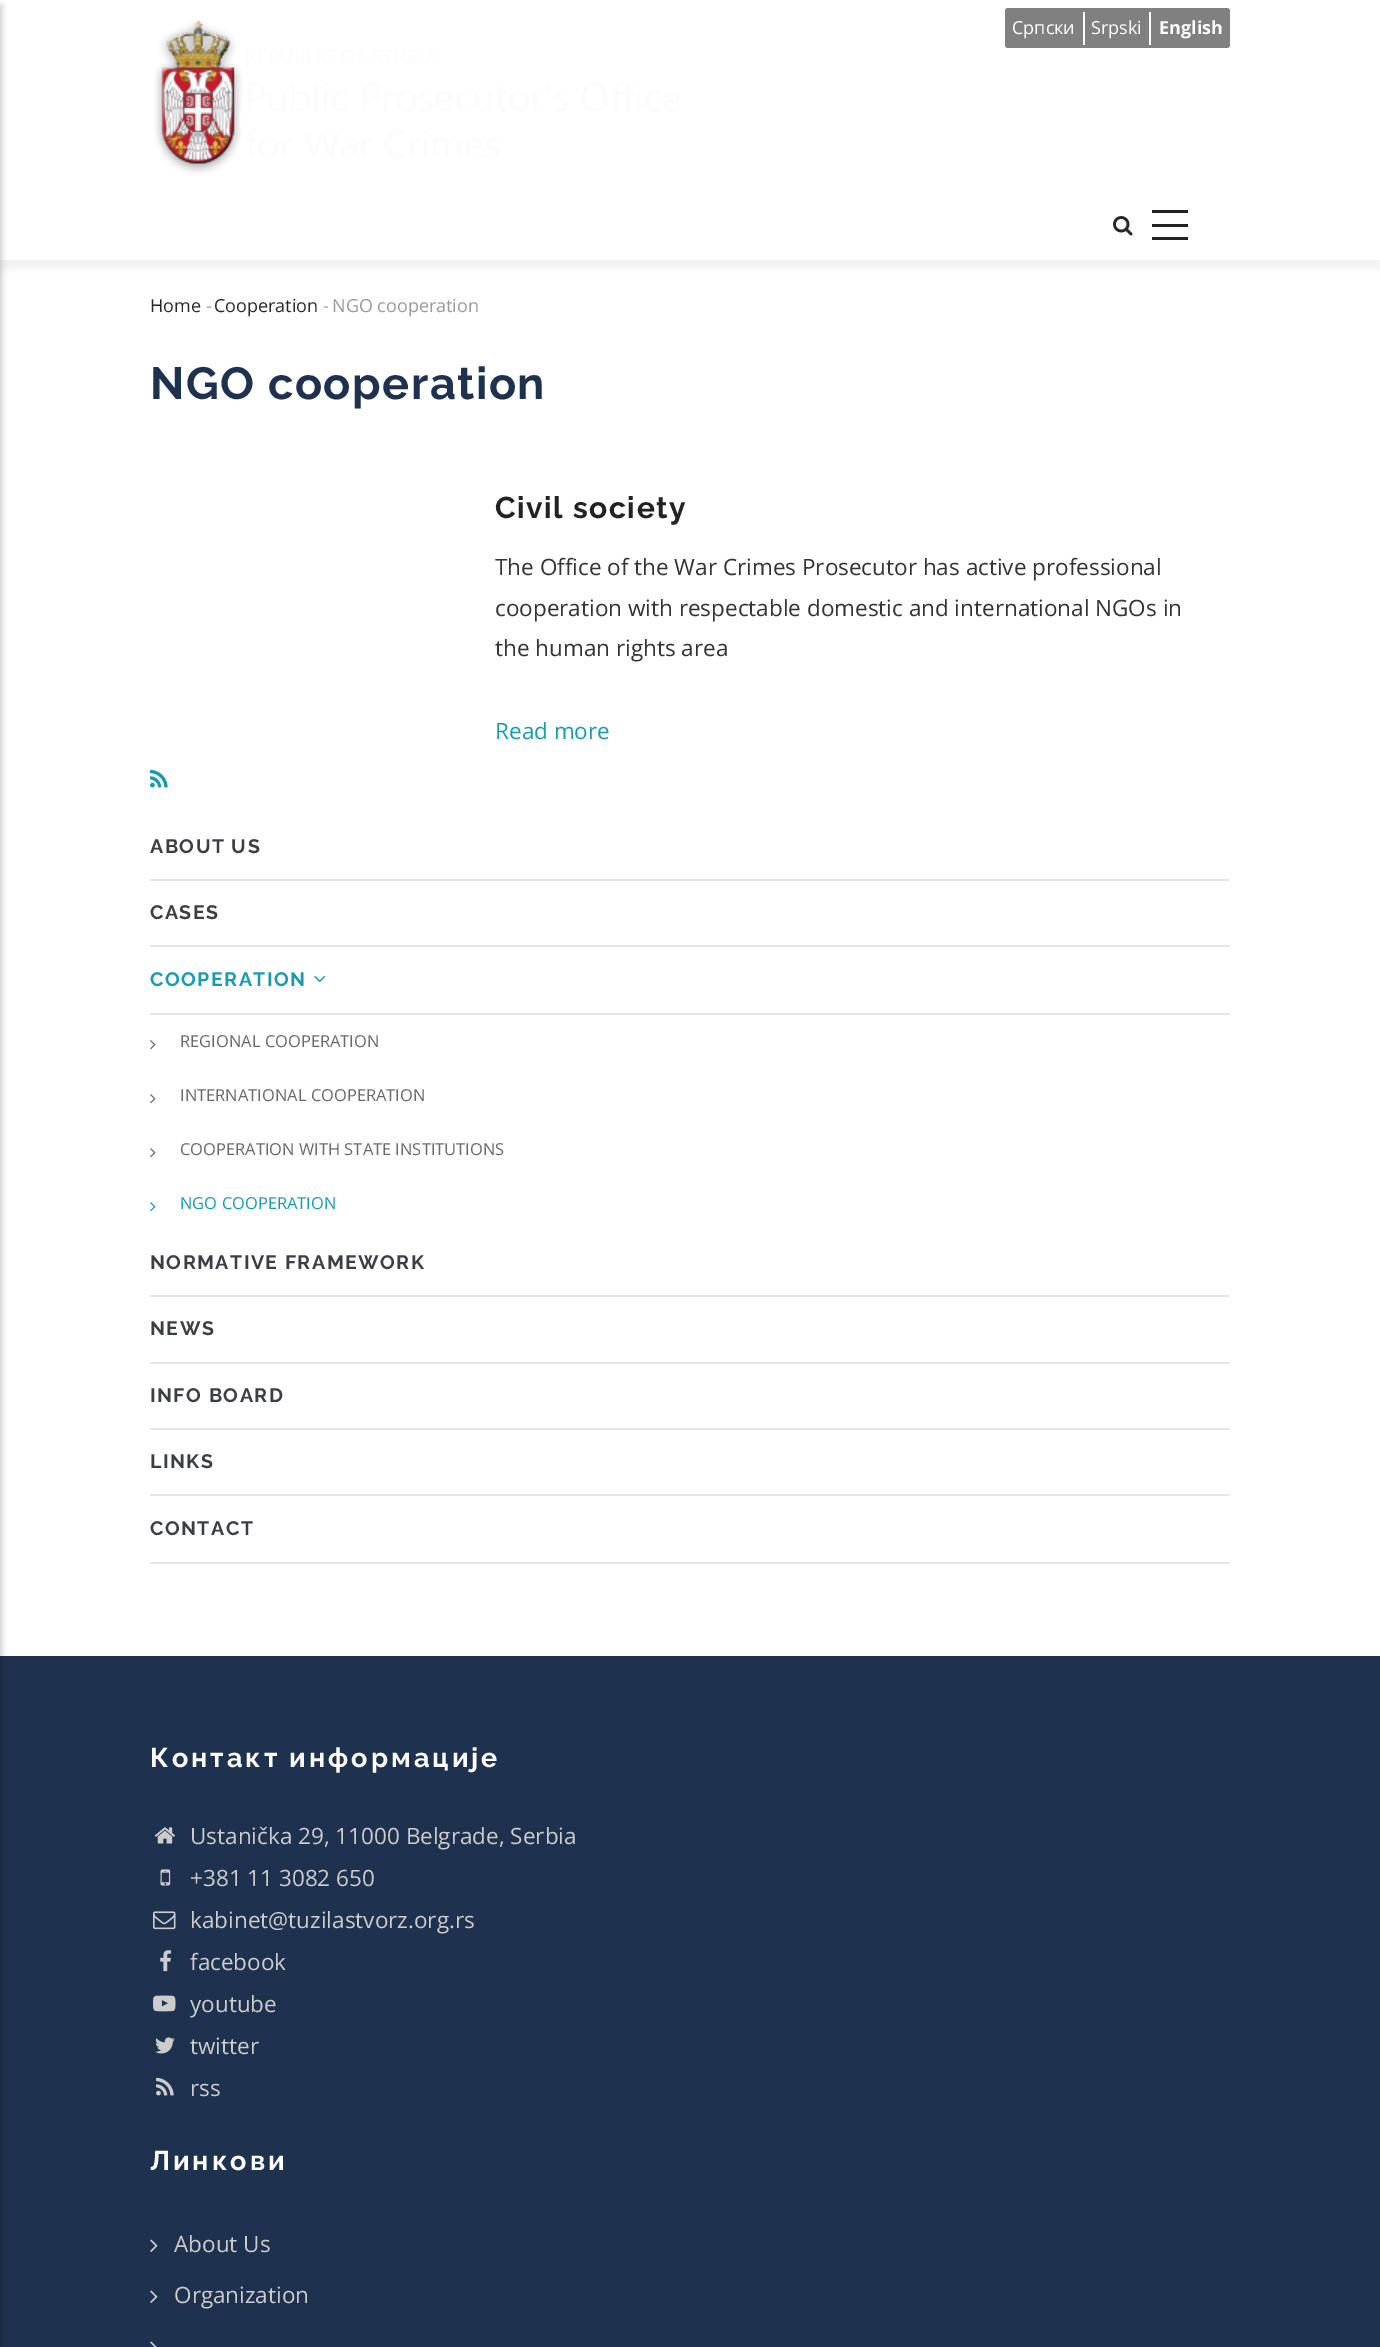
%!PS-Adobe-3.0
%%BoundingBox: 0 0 1380 2347
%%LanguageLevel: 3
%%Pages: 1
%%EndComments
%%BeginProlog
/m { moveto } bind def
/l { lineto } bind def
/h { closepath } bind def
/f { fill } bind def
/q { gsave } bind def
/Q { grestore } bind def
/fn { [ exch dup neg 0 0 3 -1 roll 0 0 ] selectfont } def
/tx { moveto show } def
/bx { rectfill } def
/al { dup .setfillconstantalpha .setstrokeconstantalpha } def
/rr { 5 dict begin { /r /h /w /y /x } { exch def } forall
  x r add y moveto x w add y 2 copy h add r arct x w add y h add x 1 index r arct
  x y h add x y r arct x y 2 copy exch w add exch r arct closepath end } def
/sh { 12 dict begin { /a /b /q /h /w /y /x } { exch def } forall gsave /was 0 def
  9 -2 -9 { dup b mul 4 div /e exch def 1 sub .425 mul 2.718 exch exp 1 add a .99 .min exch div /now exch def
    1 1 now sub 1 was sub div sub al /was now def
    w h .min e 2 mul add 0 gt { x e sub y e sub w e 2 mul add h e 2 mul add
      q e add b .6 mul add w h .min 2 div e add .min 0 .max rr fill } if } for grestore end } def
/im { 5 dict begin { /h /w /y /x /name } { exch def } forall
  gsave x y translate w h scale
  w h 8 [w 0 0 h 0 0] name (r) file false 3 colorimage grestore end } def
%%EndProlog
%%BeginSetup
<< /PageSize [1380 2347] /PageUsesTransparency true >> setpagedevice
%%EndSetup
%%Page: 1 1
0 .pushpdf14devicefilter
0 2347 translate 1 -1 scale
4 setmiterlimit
1 setgray
0 0 1380 2347 bx
q
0 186 m 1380 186 l 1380 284 l 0 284 l h 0 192 m 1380 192 l 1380 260 l 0 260 l h eoclip newpath
0 setgray
0 201 1380 68 0 4.5 0.06 sh
Q
0.118 0.192 0.31 setrgbcolor
0 1656 1380 691 bx
0 setgray
-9 5 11 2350 0 3 0.2 sh
(image0.raw) 1113 216 20 20 im
0.133 setgray
1152 210 36 3 bx
1152 224 36 3 bx
1152 237 36 3 bx
(image1.raw) 154 20 525 154 im
0.502 setgray
1005 8 225 40 3 rr f
1 setgray
1083 12 2 33 bx
/OpenSans-Regular 18 fn
(Српски) 1012 34 tx
1149 12 2 33 bx
(Srpski) 1091 34 tx
/OpenSans-Bold 18 fn
(English) 1159 34 tx
/OpenSans-Regular 18 fn
0.157 setgray
(Home) 150 312 tx
0.6 setgray
(-) 206 312 tx
0.157 setgray
(Cooperation) 214 312 tx
0.6 setgray
(-) 323 312 tx
(NGO cooperation) 332 312 tx
/Raleway-Bold 45 fn
0.118 0.192 0.31 setrgbcolor
150 399 m 1.5 0 (NGO cooperation) ashow
/Raleway-Bold 30 fn
0.133 setgray
495 518 m 1.5 0 (Civil society) ashow
/OpenSans-Regular 22.5 fn
0.2 setgray
(The Office of the War Crimes Prosecutor has active professional) 495 575 tx
(cooperation with respectable domestic and international NGOs in) 495 616 tx
(the human rights area) 495 656 tx
0.09 0.608 0.698 setrgbcolor
(Read more) 495 739 tx
(image2.raw) 150 769 18 19 im
0.902 setgray
150 879 1080 2 bx
/Raleway-Bold 19.5 fn
0.231 0.243 0.263 setrgbcolor
150 853 m 1.5 0 (ABOUT US) ashow
0.902 setgray
150 945 1080 2 bx
0.231 0.243 0.263 setrgbcolor
150 919 m 1.5 0 (CASES) ashow
0.902 setgray
150 1013 1080 2 bx
0.09 0.608 0.698 setrgbcolor
150 986 m 1.5 0 (COOPERATION) ashow
(image3.raw) 314 975 12 8 im
(image4.raw) 150 1040 6 10 im
/OpenSans-Regular 16.5 fn
0.412 setgray
(REGIONAL COOPERATION) 180 1047 tx
(image4.raw) 150 1094 6 10 im
(INTERNATIONAL COOPERATION) 180 1101 tx
(image4.raw) 150 1148 6 10 im
(COOPERATION WITH STATE INSTITUTIONS) 180 1155 tx
(image5.raw) 150 1202 6 10 im
0.09 0.608 0.698 setrgbcolor
(NGO COOPERATION) 180 1209 tx
0.902 setgray
150 1295 1080 2 bx
/Raleway-Bold 19.5 fn
0.231 0.243 0.263 setrgbcolor
150 1269 m 1.5 0 (NORMATIVE FRAMEWORK) ashow
0.902 setgray
150 1362 1080 2 bx
0.231 0.243 0.263 setrgbcolor
150 1335 m 1.5 0 (NEWS) ashow
0.902 setgray
150 1428 1080 2 bx
0.231 0.243 0.263 setrgbcolor
150 1402 m 1.5 0 (INFO BOARD) ashow
0.902 setgray
150 1494 1080 2 bx
0.231 0.243 0.263 setrgbcolor
150 1468 m 1.5 0 (LINKS) ashow
0.902 setgray
150 1562 1080 2 bx
0.231 0.243 0.263 setrgbcolor
150 1535 m 1.5 0 (CONTACT) ashow
/Raleway-Bold 27 fn
1 setgray
150 1767 m 3 0 (Контакт информације) ashow
(image6.raw) 154 1827 21 17 im
/OpenSans-Regular 22.5 fn
0.8 setgray
(Ustanička 29, 11000 Belgrade, Serbia) 190 1844 tx
(image7.raw) 160 1869 11 17 im
(+381 11 3082 650) 190 1886 tx
(image8.raw) 153 1911 23 19 im
(kabinet@tuzilastvorz.org.rs) 190 1928 tx
(image9.raw) 160 1950 12 22 im
(facebook) 190 1970 tx
(image10.raw) 153 1995 23 17 im
(youtube) 190 2012 tx
(image11.raw) 155 2037 20 17 im
(twitter) 190 2054 tx
(image12.raw) 156 2077 18 19 im
(rss) 190 2096 tx
/Raleway-Bold 27 fn
1 setgray
150 2170 m 3 0 (Линкови) ashow
(image13.raw) 150 2239 8 13 im
/OpenSans-Regular 22.5 fn
0.8 setgray
(About Us) 174 2252 tx
(image13.raw) 150 2290 8 13 im
(Organization) 174 2303 tx
(image14.raw) 150 2341 7 6 im
.poppdf14devicefilter showpage
%%EOF
